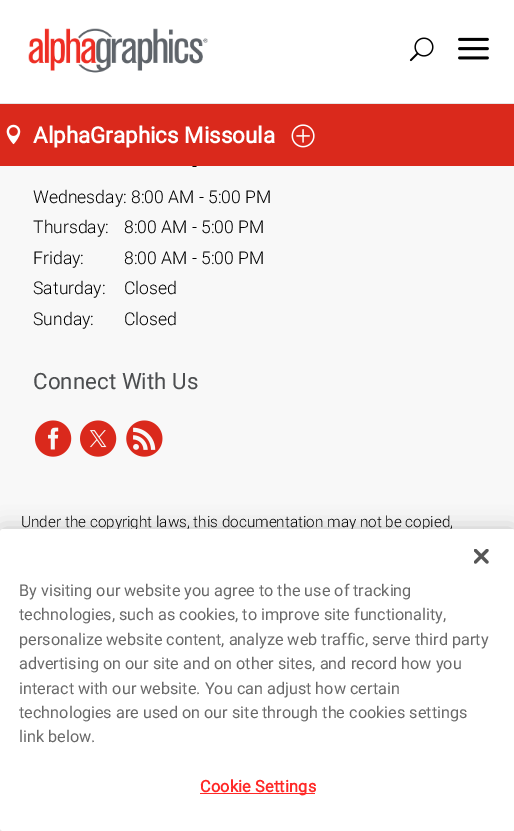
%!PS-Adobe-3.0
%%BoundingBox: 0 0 514 831
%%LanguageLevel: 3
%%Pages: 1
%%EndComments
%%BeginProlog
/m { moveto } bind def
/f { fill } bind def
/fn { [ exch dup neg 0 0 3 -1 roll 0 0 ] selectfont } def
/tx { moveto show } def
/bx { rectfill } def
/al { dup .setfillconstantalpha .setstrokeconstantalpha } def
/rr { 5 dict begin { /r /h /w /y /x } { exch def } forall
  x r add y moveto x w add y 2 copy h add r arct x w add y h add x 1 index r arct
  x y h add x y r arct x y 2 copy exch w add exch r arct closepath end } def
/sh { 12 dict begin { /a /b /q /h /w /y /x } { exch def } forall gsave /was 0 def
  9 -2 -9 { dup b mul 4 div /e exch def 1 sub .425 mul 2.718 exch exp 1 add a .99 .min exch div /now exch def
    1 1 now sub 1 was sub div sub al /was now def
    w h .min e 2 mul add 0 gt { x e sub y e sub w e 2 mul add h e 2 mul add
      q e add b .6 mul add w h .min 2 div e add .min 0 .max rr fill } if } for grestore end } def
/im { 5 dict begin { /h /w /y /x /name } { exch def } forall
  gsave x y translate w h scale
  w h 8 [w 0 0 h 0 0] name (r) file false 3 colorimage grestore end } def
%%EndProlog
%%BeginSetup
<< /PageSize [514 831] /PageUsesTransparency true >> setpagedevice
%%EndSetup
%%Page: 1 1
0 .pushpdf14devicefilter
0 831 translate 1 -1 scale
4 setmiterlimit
0.973 setgray
0 0 514 831 bx
1 setgray
0 0 514 103 bx
0.898 setgray
0 103 514 1 bx
(image0.raw) 28 28 180 45 im
(image1.raw) 409 37 25 25 im
(image2.raw) 458 37 31 23 im
0.855 0.161 0.11 setrgbcolor
0 104 514 62 bx
(image3.raw) 6 124 15 21 im
/Roboto-Bold 22.4 fn
1 setgray
(AlphaGraphics Missoula) 33 143 tx
(image4.raw) 291 124 24 24 im
/Roboto-Light 17.6 fn
0 setgray
(-) 192 172 tx
(Wednesday: 8:00 AM - 5:00 PM) 33 203 tx
(Thursday:) 33 233 tx
(8:00 AM - 5:00 PM) 124 233 tx
(Friday:) 33 264 tx
(8:00 AM - 5:00 PM) 124 264 tx
(Saturday:) 33 294 tx
(Closed) 124 294 tx
(Sunday:) 33 325 tx
(Closed) 124 325 tx
/Roboto-Regular 22.4 fn
0.298 0.306 0.314 setrgbcolor
(Connect With Us) 33 389 tx
(image5.raw) 35 420 37 37 im
(image6.raw) 80 420 37 37 im
(image7.raw) 126 420 37 37 im
/Roboto-Light 15.3 fn
0 setgray
(Under the copyright laws, this documentation may not be copied,) 21 527 tx
0 529 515 302 3 11 0.2 sh
1 setgray
0 529 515 302 3 rr f
(image8.raw) 474 549 15 15 im
/Roboto-Regular 16.25 fn
0.412 setgray
(By visiting our website you agree to the use of tracking) 19 596 tx
(technologies, such as cookies, to improve site functionality,) 19 620 tx
(personalize website content, analyze web traffic, serve third party) 19 645 tx
(advertising on our site and on other sites, and record how you) 19 669 tx
(interact with our website. You can adjust how certain) 19 694 tx
(technologies are used on our site through the cookies settings) 19 718 tx
(link below.) 19 742 tx
1 0.161 0.153 setrgbcolor
200 793 115 1 bx
/Roboto-Bold 16.25 fn
200 792 m 0.2 0 (Cookie Settings) ashow
.poppdf14devicefilter showpage
%%EOF
